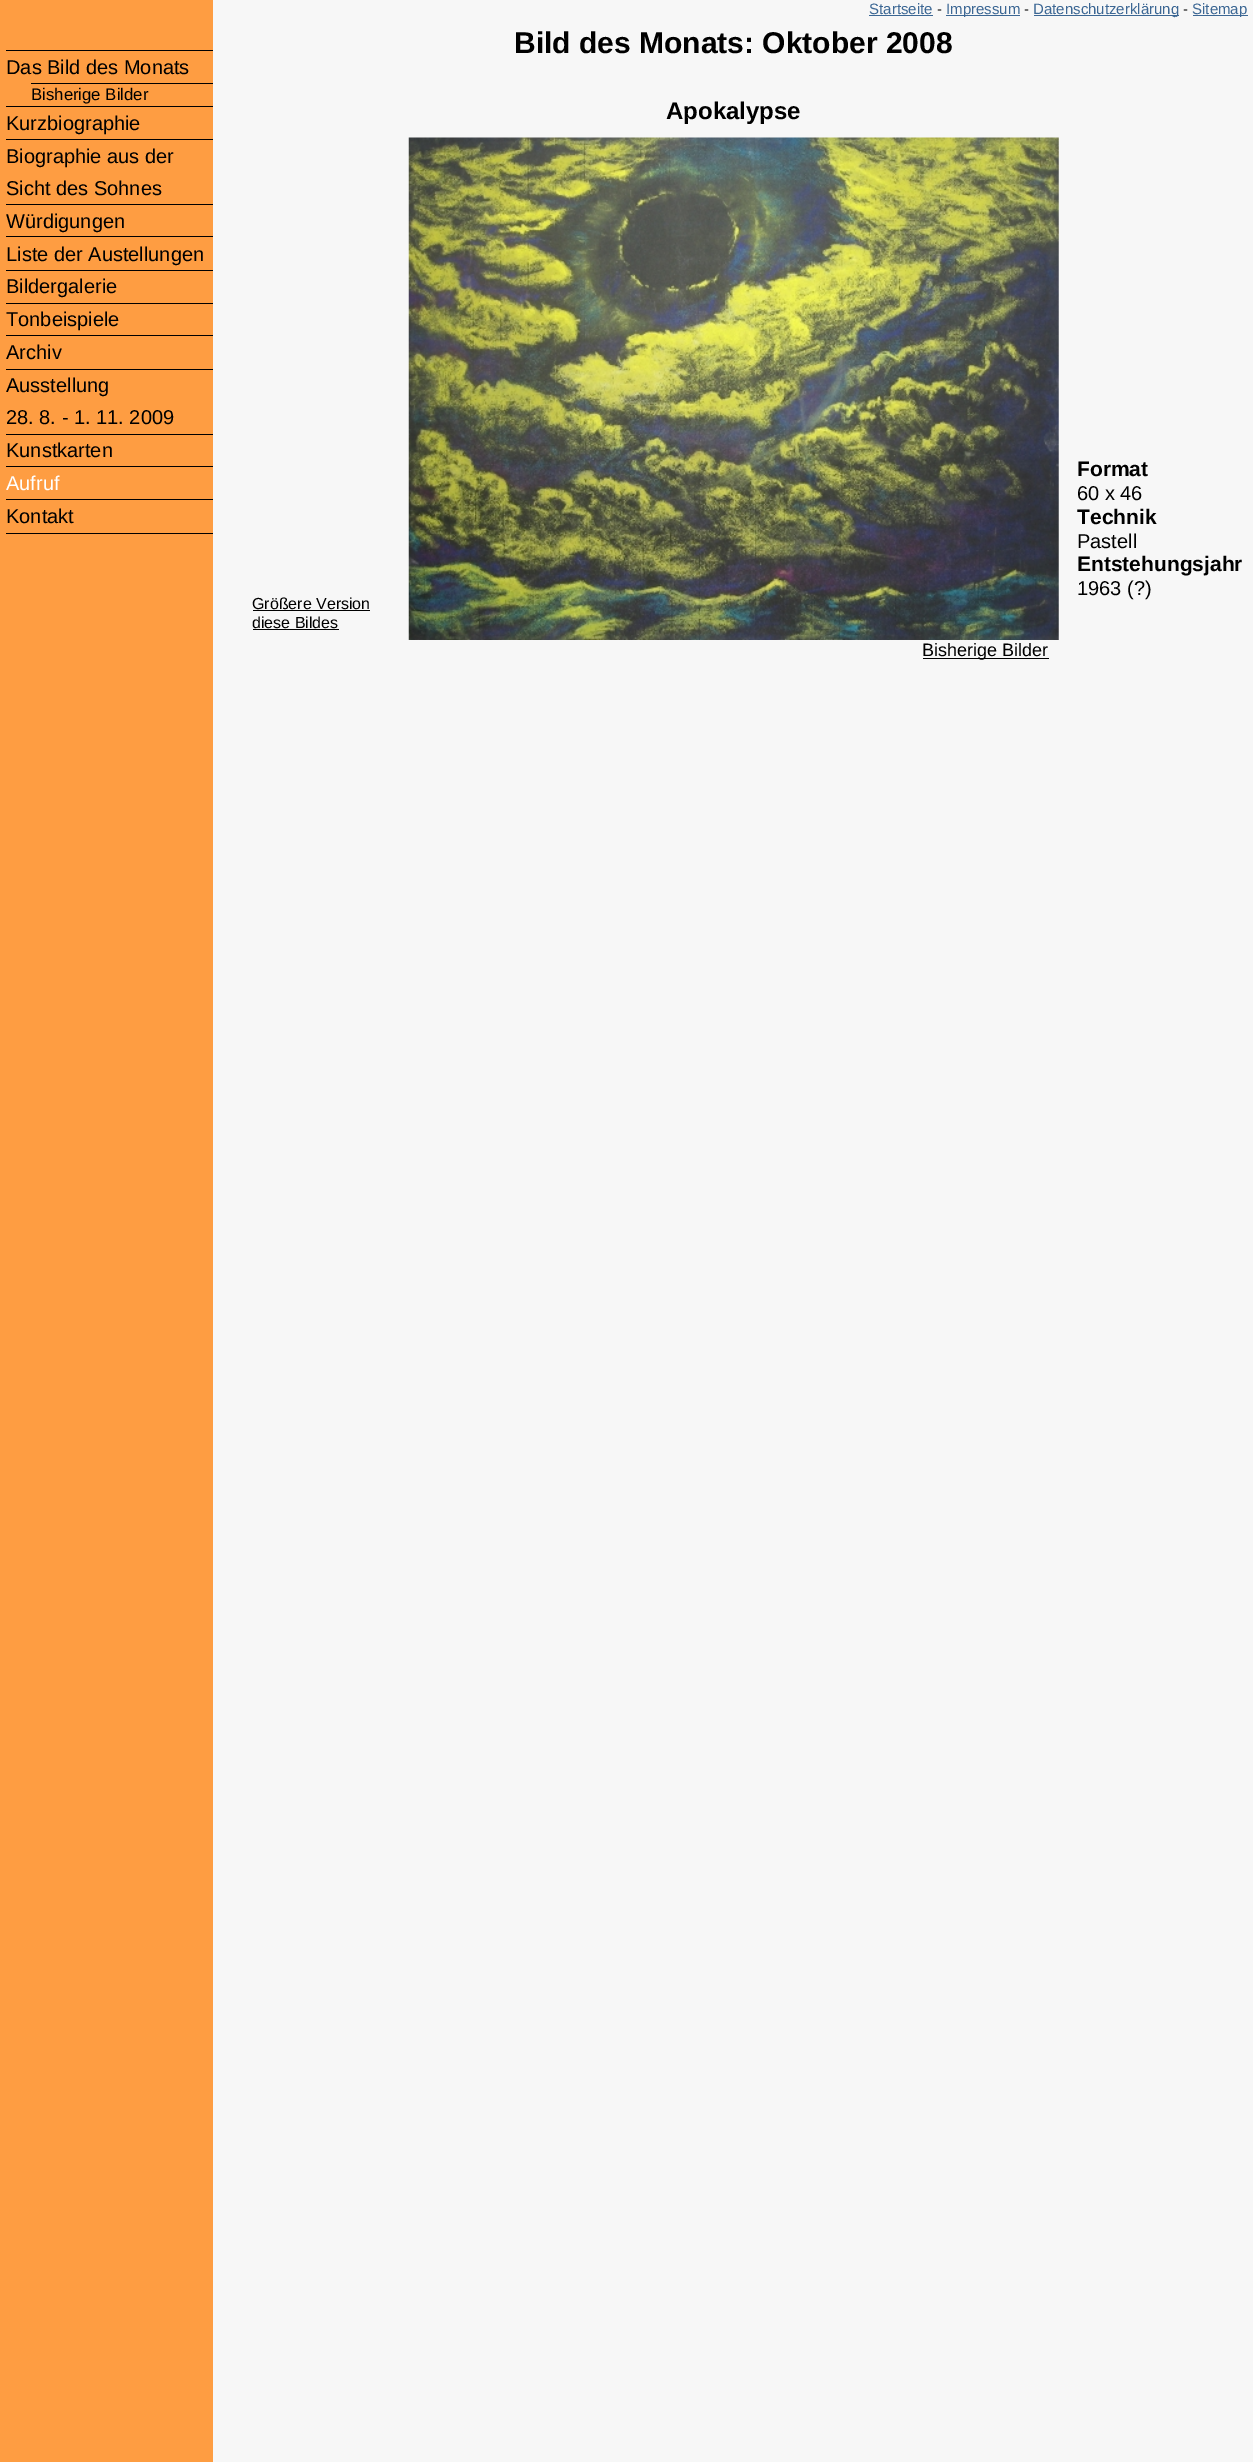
%!PS-Adobe-3.0
%%BoundingBox: 0 0 1253 2462
%%LanguageLevel: 3
%%Pages: 1
%%EndComments
%%BeginProlog
/fn { [ exch dup neg 0 0 3 -1 roll 0 0 ] selectfont } def
/tx { moveto show } def
/bx { rectfill } def
/im { 5 dict begin { /h /w /y /x /name } { exch def } forall
  gsave x y translate w h scale
  w h 8 [w 0 0 h 0 0] name (r) file false 3 colorimage grestore end } def
%%EndProlog
%%BeginSetup
<< /PageSize [1253 2462] >> setpagedevice
%%EndSetup
%%Page: 1 1
0 2462 translate 1 -1 scale
4 setmiterlimit
0.996 0.616 0.259 setrgbcolor
0 0 1253 2462 bx
0.969 setgray
213 0 1040 2462 bx
/LiberationSans-Regular 15 fn
0.235 0.404 0.58 setrgbcolor
(Startseite) 869 14 tx
869 15 64 1 bx
0 setgray
(-) 937 14 tx
0.235 0.404 0.58 setrgbcolor
946 15 74 1 bx
(Impressum) 946 14 tx
0 setgray
(-) 1024 14 tx
0.235 0.404 0.58 setrgbcolor
1034 15 145 1 bx
(Datenschutzerklärung) 1033 14 tx
0 setgray
(-) 1183 14 tx
0.235 0.404 0.58 setrgbcolor
1193 15 55 1 bx
(Sitemap) 1192 14 tx
0 setgray
6 50 207 1 bx
6 106 207 1 bx
/LiberationSans-Regular 20 fn
(Das Bild des Monats) 6 74 tx
31 83 182 1 bx
/LiberationSans-Regular 16.75 fn
(Bisherige Bilder) 31 100 tx
6 139 207 1 bx
/LiberationSans-Regular 20 fn
(Kurzbiographie) 6 130 tx
6 204 207 1 bx
(Biographie aus der) 6 163 tx
(Sicht des Sohnes) 6 195 tx
6 236 207 1 bx
(Würdigungen) 6 228 tx
6 270 207 1 bx
(Liste der Austellungen) 6 261 tx
6 303 207 1 bx
(Bildergalerie) 6 293 tx
6 335 207 1 bx
(Tonbeispiele) 6 326 tx
6 369 207 1 bx
(Archiv) 6 359 tx
6 434 207 1 bx
(Ausstellung) 6 392 tx
(28. 8. - 1. 11. 2009) 6 424 tx
6 466 207 1 bx
(Kunstkarten) 6 457 tx
6 499 207 1 bx
1 setgray
(Aufruf) 6 490 tx
0 setgray
6 533 207 1 bx
(Kontakt) 6 523 tx
/LiberationSans-Bold 30 fn
(Bild des Monats: Oktober 2008) 514 53 tx
/LiberationSans-Bold 24 fn
(Apokalypse) 666 119 tx
(image0.raw) 408 137 651 503 im
/LiberationSans-Bold 21 fn
(Format) 1077 476 tx
/LiberationSans-Regular 20 fn
(60 x 46) 1077 500 tx
/LiberationSans-Bold 21 fn
(Technik) 1077 524 tx
/LiberationSans-Regular 20 fn
(Pastell) 1077 548 tx
/LiberationSans-Bold 21 fn
(Entstehungsjahr) 1077 571 tx
/LiberationSans-Regular 20 fn
(1963 \(?\)) 1077 595 tx
/LiberationSans-Regular 16 fn
(Größere Version) 252 609 tx
253 610 117 1 bx
(diese Bildes) 252 628 tx
253 629 86 1 bx
923 658 126 1 bx
/LiberationSans-Regular 18 fn
(Bisherige Bilder) 922 656 tx
showpage
%%EOF
